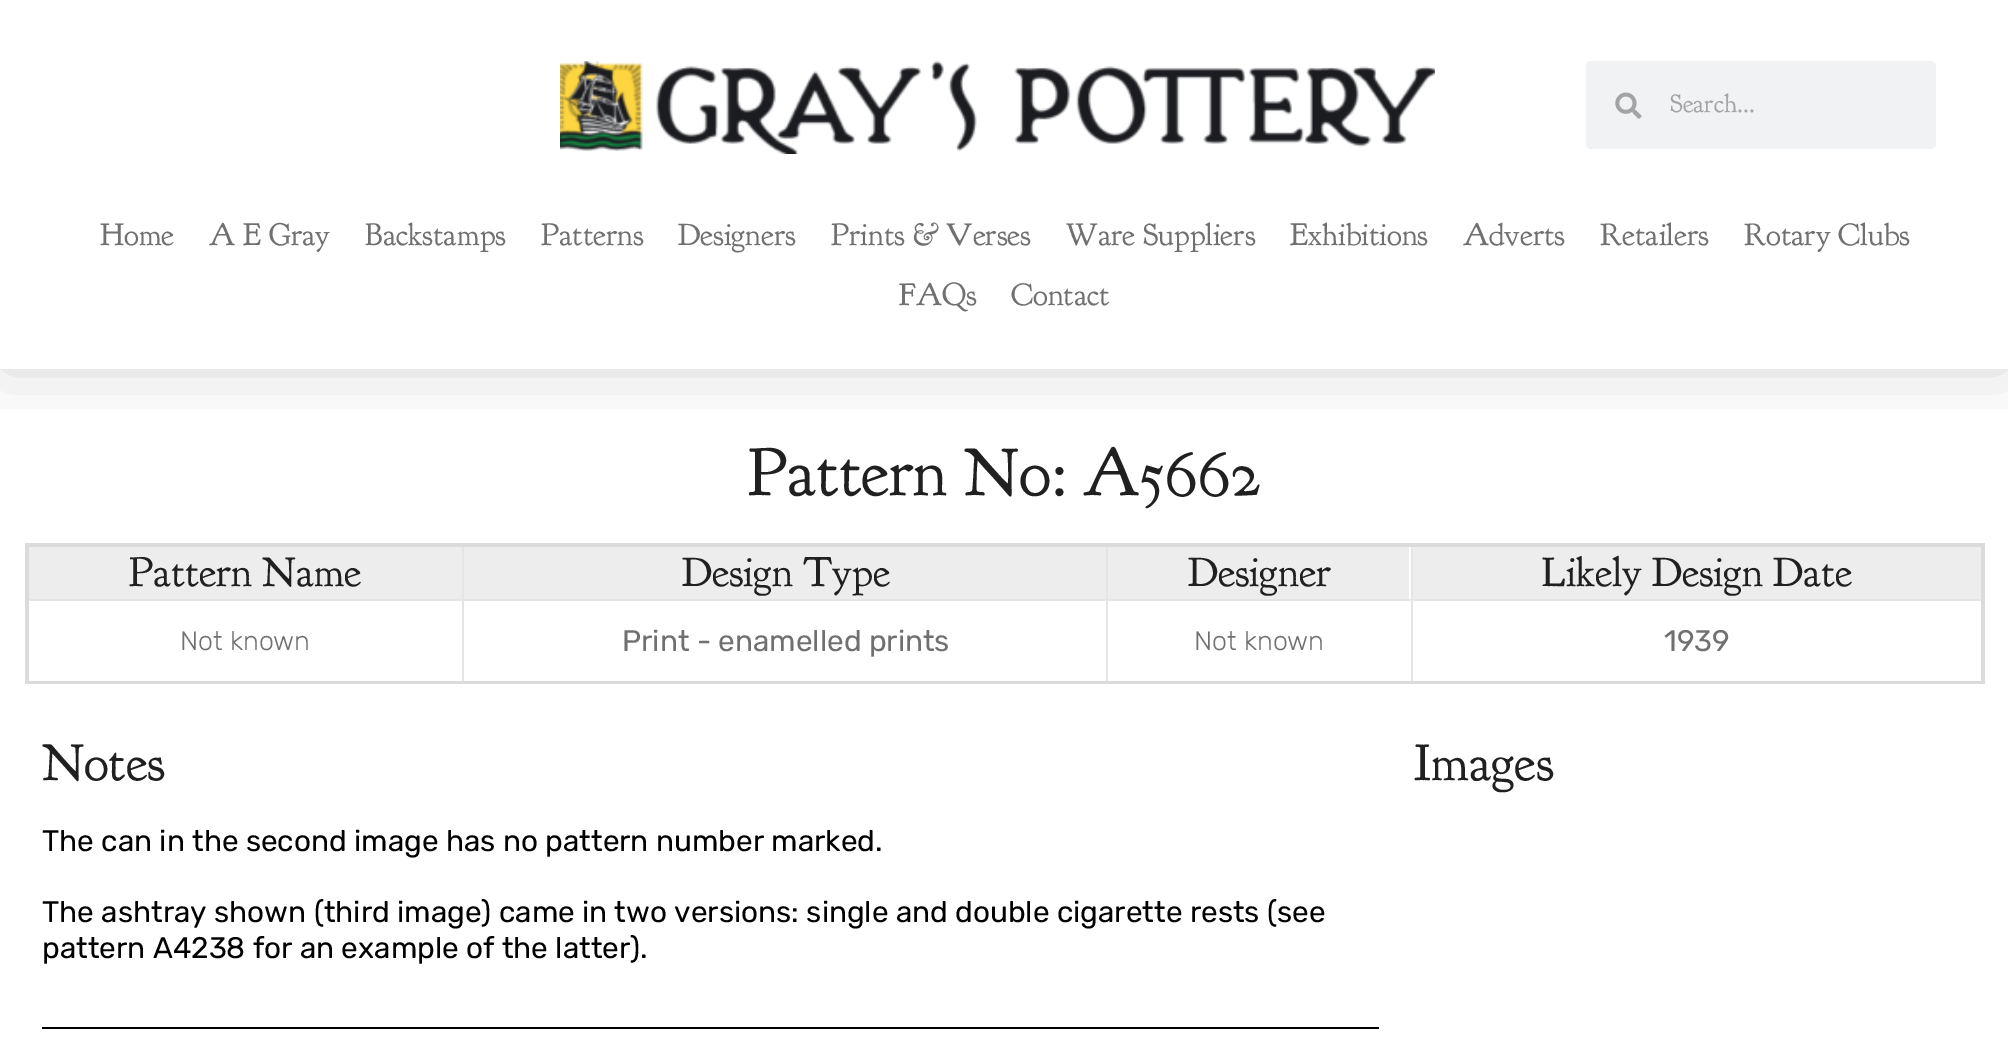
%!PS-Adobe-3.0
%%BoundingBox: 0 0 2008 1046
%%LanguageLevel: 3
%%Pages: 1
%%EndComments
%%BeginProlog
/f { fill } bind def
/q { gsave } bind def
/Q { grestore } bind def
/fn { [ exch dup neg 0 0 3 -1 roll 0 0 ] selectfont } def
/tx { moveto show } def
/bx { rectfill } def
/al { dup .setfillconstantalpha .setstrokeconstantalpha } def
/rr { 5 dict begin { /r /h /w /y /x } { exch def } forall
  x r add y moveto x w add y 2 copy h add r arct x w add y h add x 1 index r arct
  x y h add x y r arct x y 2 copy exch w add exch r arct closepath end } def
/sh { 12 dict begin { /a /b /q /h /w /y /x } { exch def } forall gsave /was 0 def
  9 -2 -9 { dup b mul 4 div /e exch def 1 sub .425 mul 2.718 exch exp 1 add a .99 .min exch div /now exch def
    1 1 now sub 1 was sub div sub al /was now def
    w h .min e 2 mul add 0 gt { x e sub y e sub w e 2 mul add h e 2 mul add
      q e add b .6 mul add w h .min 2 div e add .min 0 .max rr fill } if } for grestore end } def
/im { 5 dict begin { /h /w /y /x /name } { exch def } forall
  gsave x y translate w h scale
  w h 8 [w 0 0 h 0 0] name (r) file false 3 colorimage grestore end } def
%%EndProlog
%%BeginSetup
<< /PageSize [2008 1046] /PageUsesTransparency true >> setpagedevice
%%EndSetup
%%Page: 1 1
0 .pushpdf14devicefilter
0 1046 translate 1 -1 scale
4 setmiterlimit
1 setgray
0 0 2008 1046 bx
q
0 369 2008 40 rectclip
0 setgray
0 0 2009 369 0 35 0.16 sh
Q
(image0.raw) 560 61 875 93 im
0.945 0.949 0.953 setrgbcolor
1586 61 350 88 5 rr f
(image1.raw) 1615 92 27 27 im
/GoudyBookletter1911-Regular 26 fn
0.643 setgray
(Search...) 1670 112 tx
/GoudyBookletter1911-Regular 31.5 fn
0.439 setgray
(Home) 100 245 tx
(A E Gray) 209 245 tx
(Backstamps) 365 245 tx
(Patterns) 541 245 tx
(Designers) 678 245 tx
(Prints & Verses) 831 245 tx
(Ware Suppliers) 1066 245 tx
(Exhibitions) 1290 245 tx
(Adverts) 1463 245 tx
(Retailers) 1600 245 tx
(Rotary Clubs) 1744 245 tx
(FAQs) 899 305 tx
(Contact) 1011 305 tx
/GoudyBookletter1911-Regular 68.25 fn
0.125 setgray
(Pattern No: A5662) 748 495 tx
0.898 setgray
1411 599 2 84 bx
1411 599 574 2 bx
1411 544 2 56 bx
1106 599 2 84 bx
1106 599 306 2 bx
1106 544 2 56 bx
462 599 2 84 bx
462 599 646 2 bx
462 544 2 56 bx
0.859 setgray
25 543 1960 4 bx
1981 543 4 141 bx
25 681 1960 3 bx
0.898 setgray
26 599 438 2 bx
0.859 setgray
25 543 4 141 bx
0.929 setgray
29 547 433 52 bx
/GoudyBookletter1911-Regular 42 fn
0.125 setgray
(Pattern Name) 129 586 tx
0.929 setgray
464 547 642 52 bx
0.125 setgray
(Design Type) 682 586 tx
0.929 setgray
1108 547 301 52 bx
0.125 setgray
(Designer) 1188 586 tx
0.929 setgray
1413 547 568 52 bx
0.125 setgray
(Likely Design Date) 1542 586 tx
/Rubik-Light 26.75 fn
0.439 setgray
(Not known) 180 650 tx
/Rubik-Regular 29.75 fn
(Print - enamelled prints) 622 651 tx
/Rubik-Light 26.75 fn
(Not known) 1194 650 tx
/Rubik-Regular 29.75 fn
(1939) 1664 651 tx
/GoudyBookletter1911-Regular 52.5 fn
0.125 setgray
(Notes) 42 780 tx
/Rubik-Regular 29.75 fn
0 setgray
(The can in the second image has no pattern number marked.) 42 851 tx
(The ashtray shown \(third image\) came in two versions: single and double cigarette rests \(see) 42 922 tx
(pattern A4238 for an example of the latter\).) 42 958 tx
42 1027 1337 2 bx
/GoudyBookletter1911-Regular 52.5 fn
0.125 setgray
(Images) 1414 780 tx
.poppdf14devicefilter showpage
%%EOF
